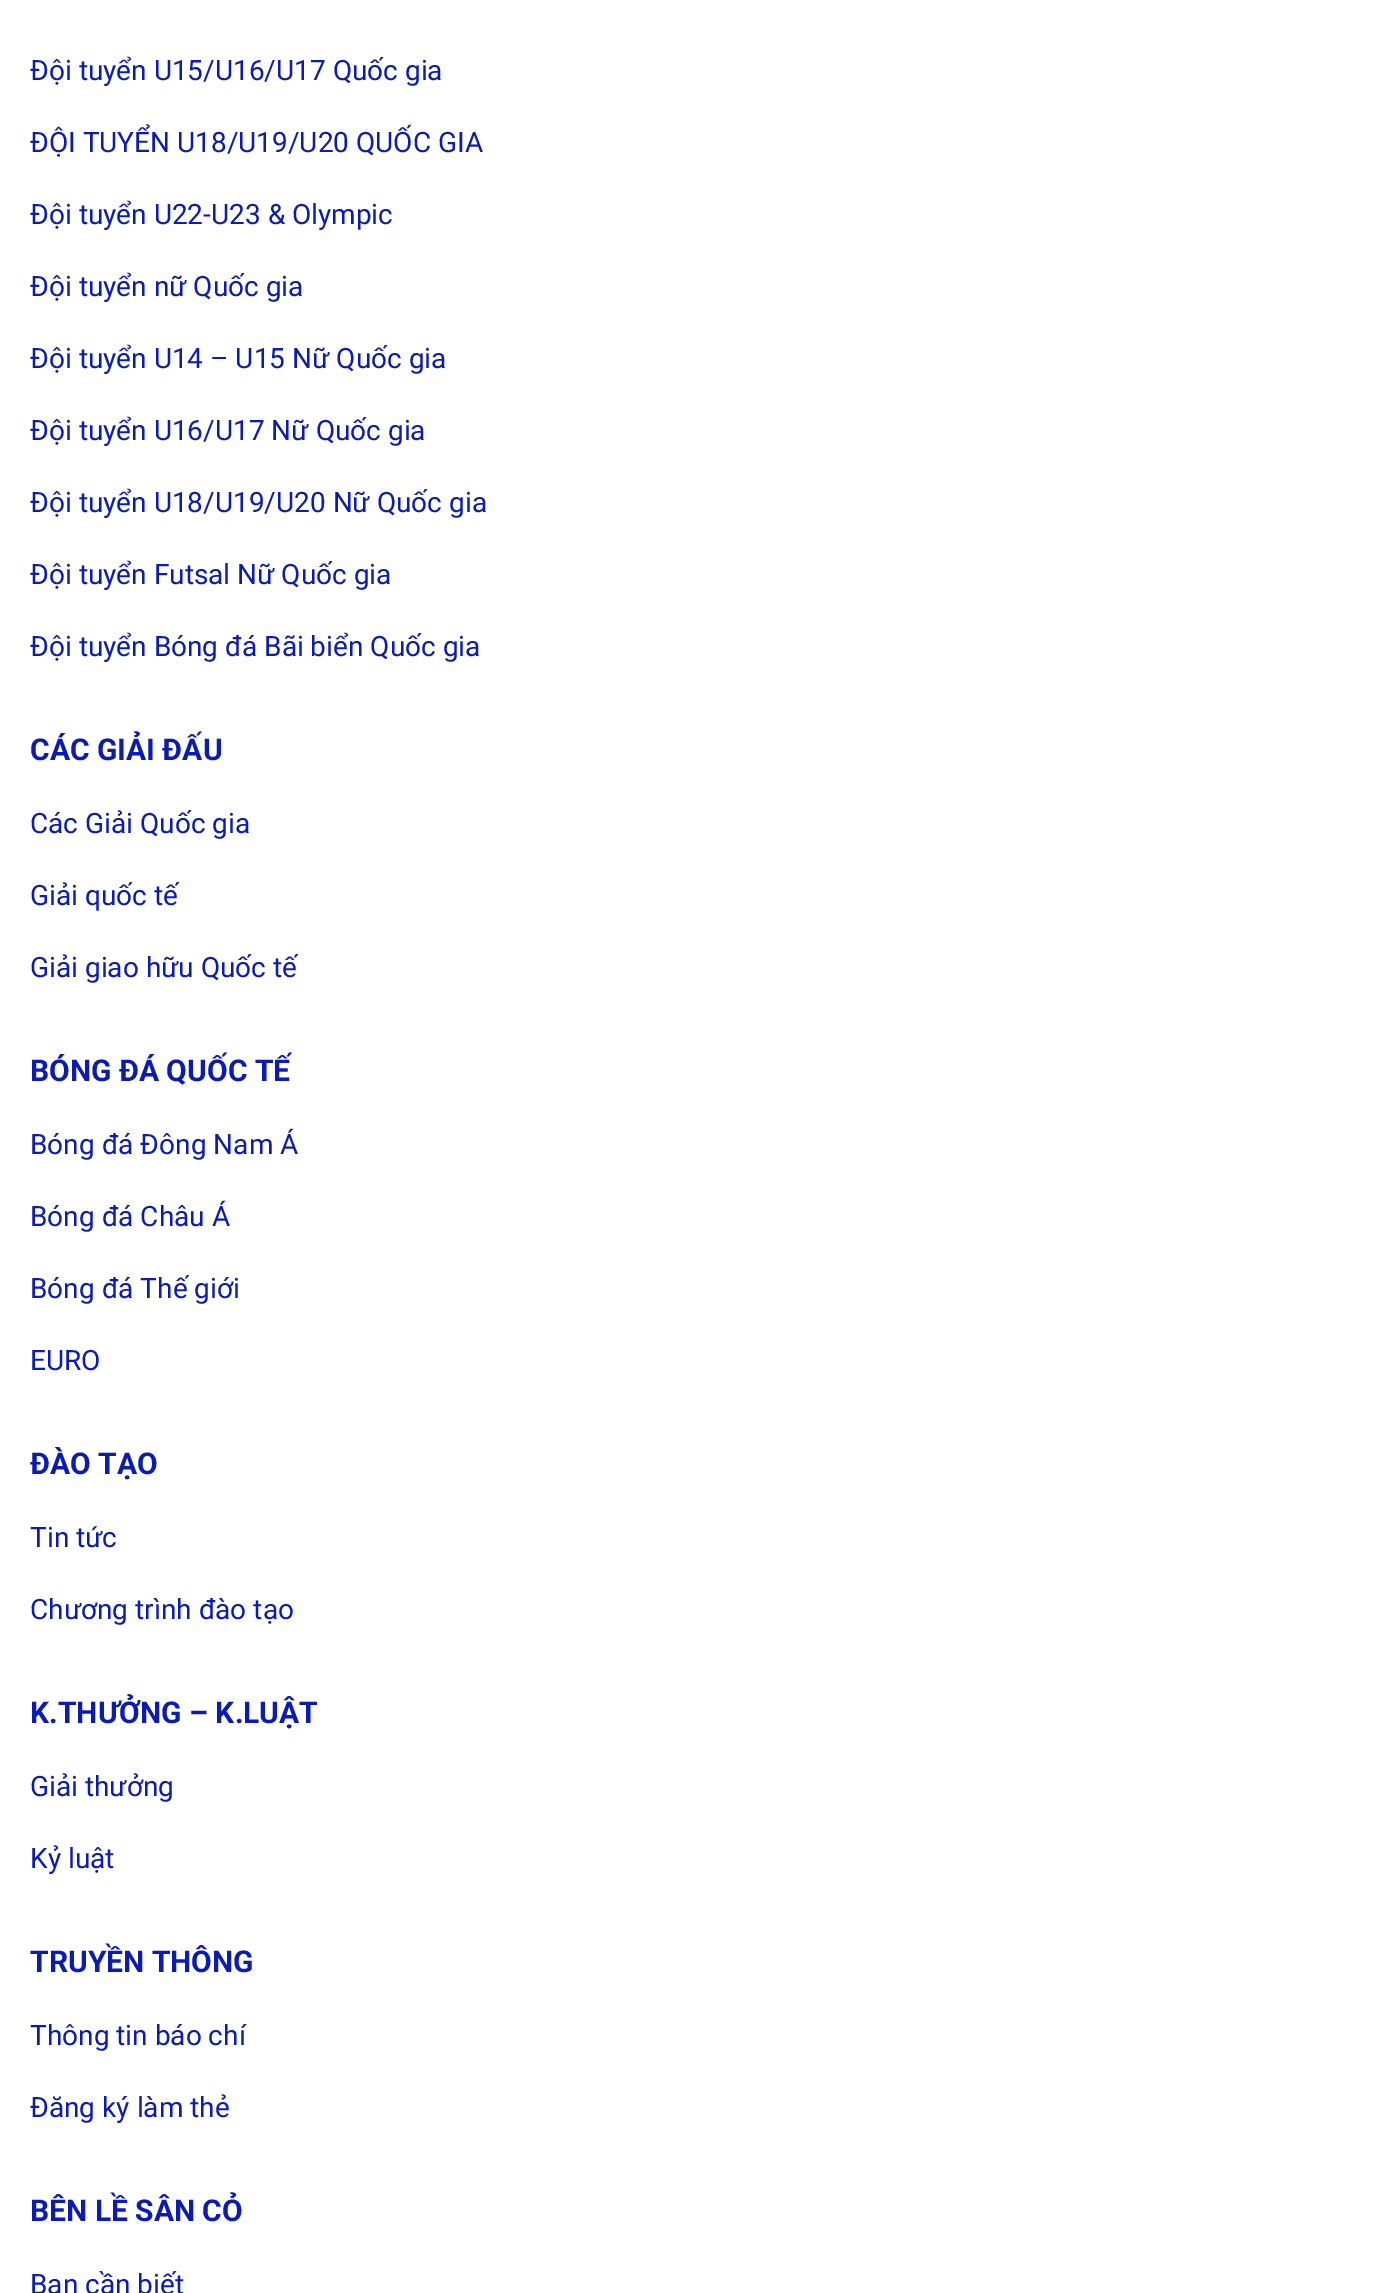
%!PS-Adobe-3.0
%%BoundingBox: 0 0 1387 2293
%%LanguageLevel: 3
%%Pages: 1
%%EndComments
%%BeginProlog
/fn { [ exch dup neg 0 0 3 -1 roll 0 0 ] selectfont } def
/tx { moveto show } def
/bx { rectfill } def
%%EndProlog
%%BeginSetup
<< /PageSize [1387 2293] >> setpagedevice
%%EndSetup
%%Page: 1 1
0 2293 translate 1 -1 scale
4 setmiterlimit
1 setgray
0 0 1387 2293 bx
/Roboto-Regular 28 fn
0.043 0.106 0.722 setrgbcolor
(Đội tuyển U15/U16/U17 Quốc gia) 30 80 tx
(ĐỘI TUYỂN U18/U19/U20 QUỐC GIA) 30 152 tx
(Đội tuyển U22-U23 & Olympic) 30 224 tx
(Đội tuyển nữ Quốc gia) 30 296 tx
(Đội tuyển U14 – U15 Nữ Quốc gia) 30 368 tx
(Đội tuyển U16/U17 Nữ Quốc gia) 30 440 tx
(Đội tuyển U18/U19/U20 Nữ Quốc gia) 30 512 tx
(Đội tuyển Futsal Nữ Quốc gia) 30 584 tx
(Đội tuyển Bóng đá Bãi biển Quốc gia) 30 656 tx
/Roboto-Bold 30 fn
(CÁC GIẢI ĐẤU) 30 760 tx
/Roboto-Regular 28 fn
(Các Giải Quốc gia) 30 833 tx
(Giải quốc tế) 30 905 tx
(Giải giao hữu Quốc tế) 30 977 tx
/Roboto-Bold 30 fn
(BÓNG ĐÁ QUỐC TẾ) 30 1081 tx
/Roboto-Regular 28 fn
(Bóng đá Đông Nam Á) 30 1154 tx
(Bóng đá Châu Á) 30 1226 tx
(Bóng đá Thế giới) 30 1298 tx
(EURO) 30 1370 tx
/Roboto-Bold 30 fn
(ĐÀO TẠO) 30 1474 tx
/Roboto-Regular 28 fn
(Tin tức) 30 1547 tx
(Chương trình đào tạo) 30 1619 tx
/Roboto-Bold 30 fn
(K.THƯỞNG – K.LUẬT) 30 1723 tx
/Roboto-Regular 28 fn
(Giải thưởng) 30 1796 tx
(Kỷ luật) 30 1868 tx
/Roboto-Bold 30 fn
(TRUYỀN THÔNG) 30 1972 tx
/Roboto-Regular 28 fn
(Thông tin báo chí) 30 2045 tx
(Đăng ký làm thẻ) 30 2117 tx
/Roboto-Bold 30 fn
(BÊN LỀ SÂN CỎ) 30 2221 tx
/Roboto-Regular 28 fn
(Bạn cần biết) 30 2294 tx
showpage
%%EOF
